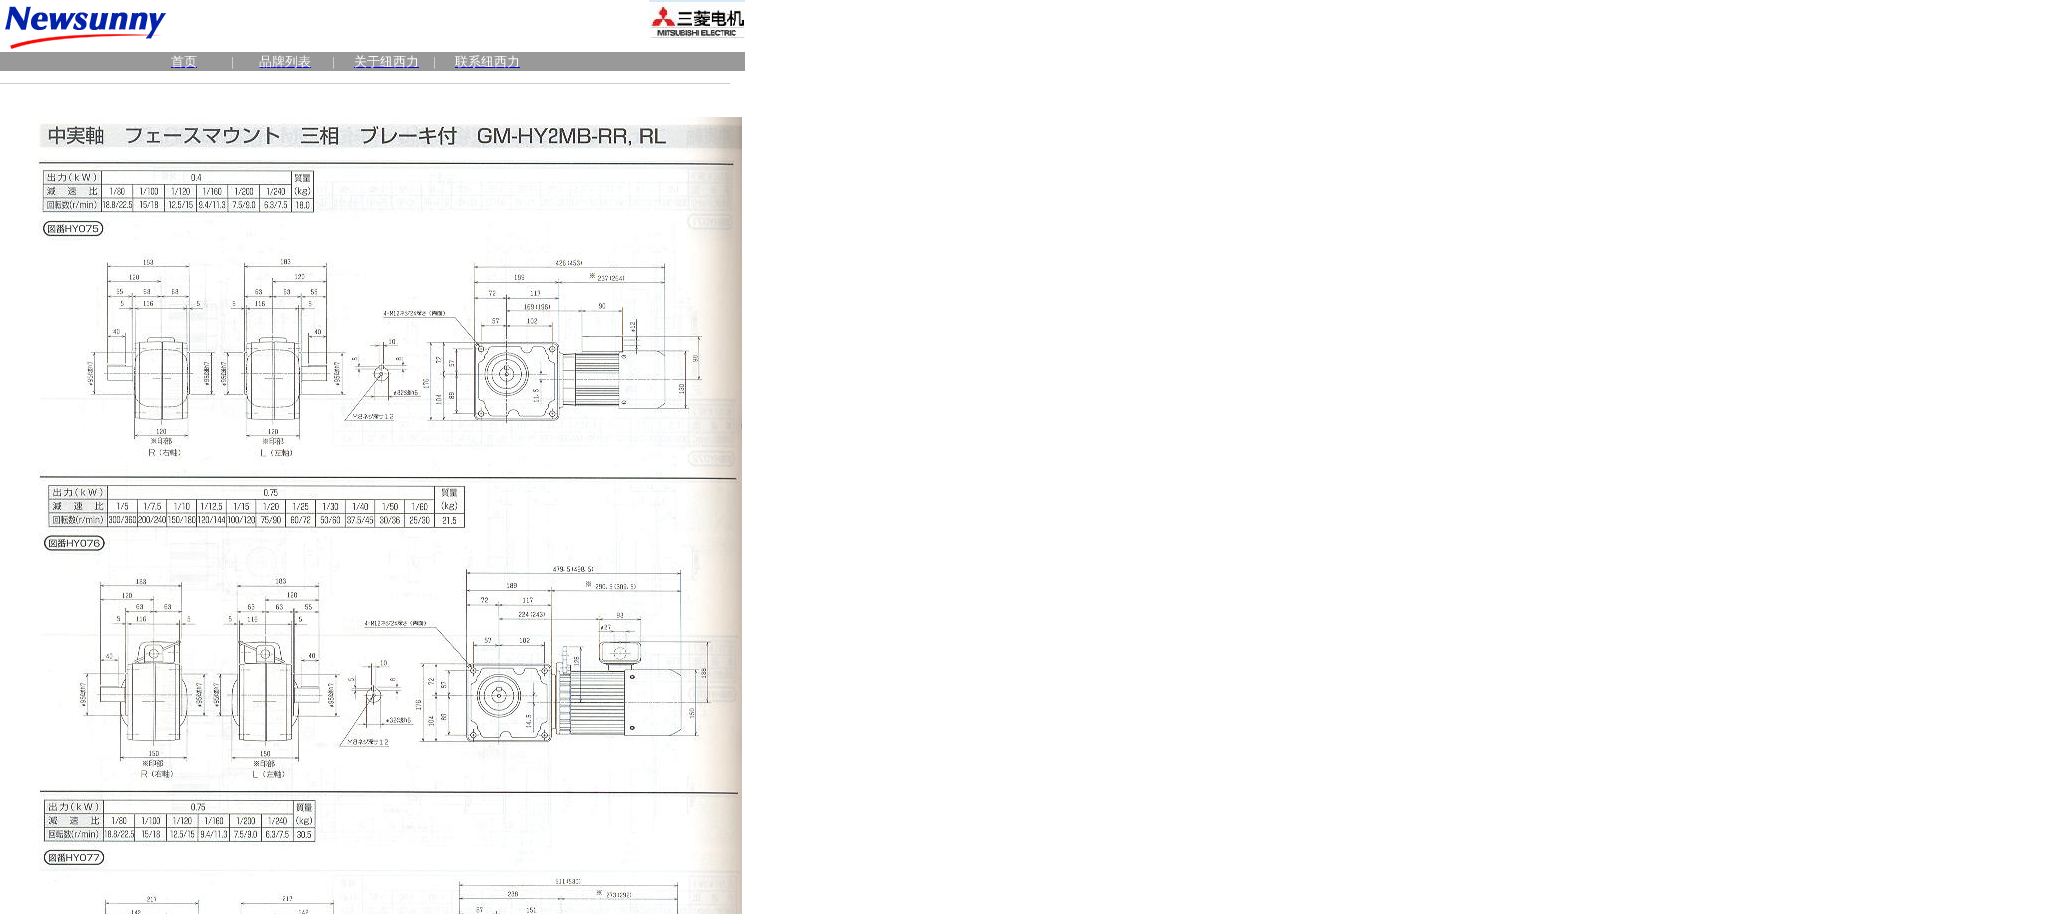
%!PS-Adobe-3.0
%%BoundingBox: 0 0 2070 914
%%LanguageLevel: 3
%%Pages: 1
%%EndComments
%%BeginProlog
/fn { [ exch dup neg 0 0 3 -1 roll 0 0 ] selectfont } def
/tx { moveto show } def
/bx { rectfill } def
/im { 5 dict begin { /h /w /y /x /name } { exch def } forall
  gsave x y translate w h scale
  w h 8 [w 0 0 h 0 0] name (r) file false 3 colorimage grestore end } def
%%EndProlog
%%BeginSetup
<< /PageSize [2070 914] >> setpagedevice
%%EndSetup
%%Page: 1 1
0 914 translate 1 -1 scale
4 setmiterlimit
1 setgray
0 0 2070 914 bx
(image0.raw) 5 6 161 43 im
(image1.raw) 649 0 96 40 im
0.6 setgray
0 52 745 19 bx
0 0 0.933 setrgbcolor
171 67 26 1 bx
/WenQuanYiZenHei-Medium 13 fn
1 setgray
(首页) 171 66 tx
/LiberationSerif-Regular 13 fn
(|) 231 66 tx
0 0 0.933 setrgbcolor
259 67 52 1 bx
/WenQuanYiZenHei-Medium 13 fn
1 setgray
(品牌列表) 259 66 tx
/LiberationSerif-Regular 13 fn
(|) 332 66 tx
0 0 0.933 setrgbcolor
354 67 65 1 bx
/WenQuanYiZenHei-Medium 13 fn
1 setgray
(关于纽西力) 354 66 tx
/LiberationSerif-Regular 13 fn
(|) 433 66 tx
0 0 0.933 setrgbcolor
455 67 65 1 bx
/WenQuanYiZenHei-Medium 13 fn
1 setgray
(联系纽西力) 455 66 tx
0.8 setgray
0 83 730 1 bx
(image2.raw) 38 117 704 797 im
showpage
%%EOF
